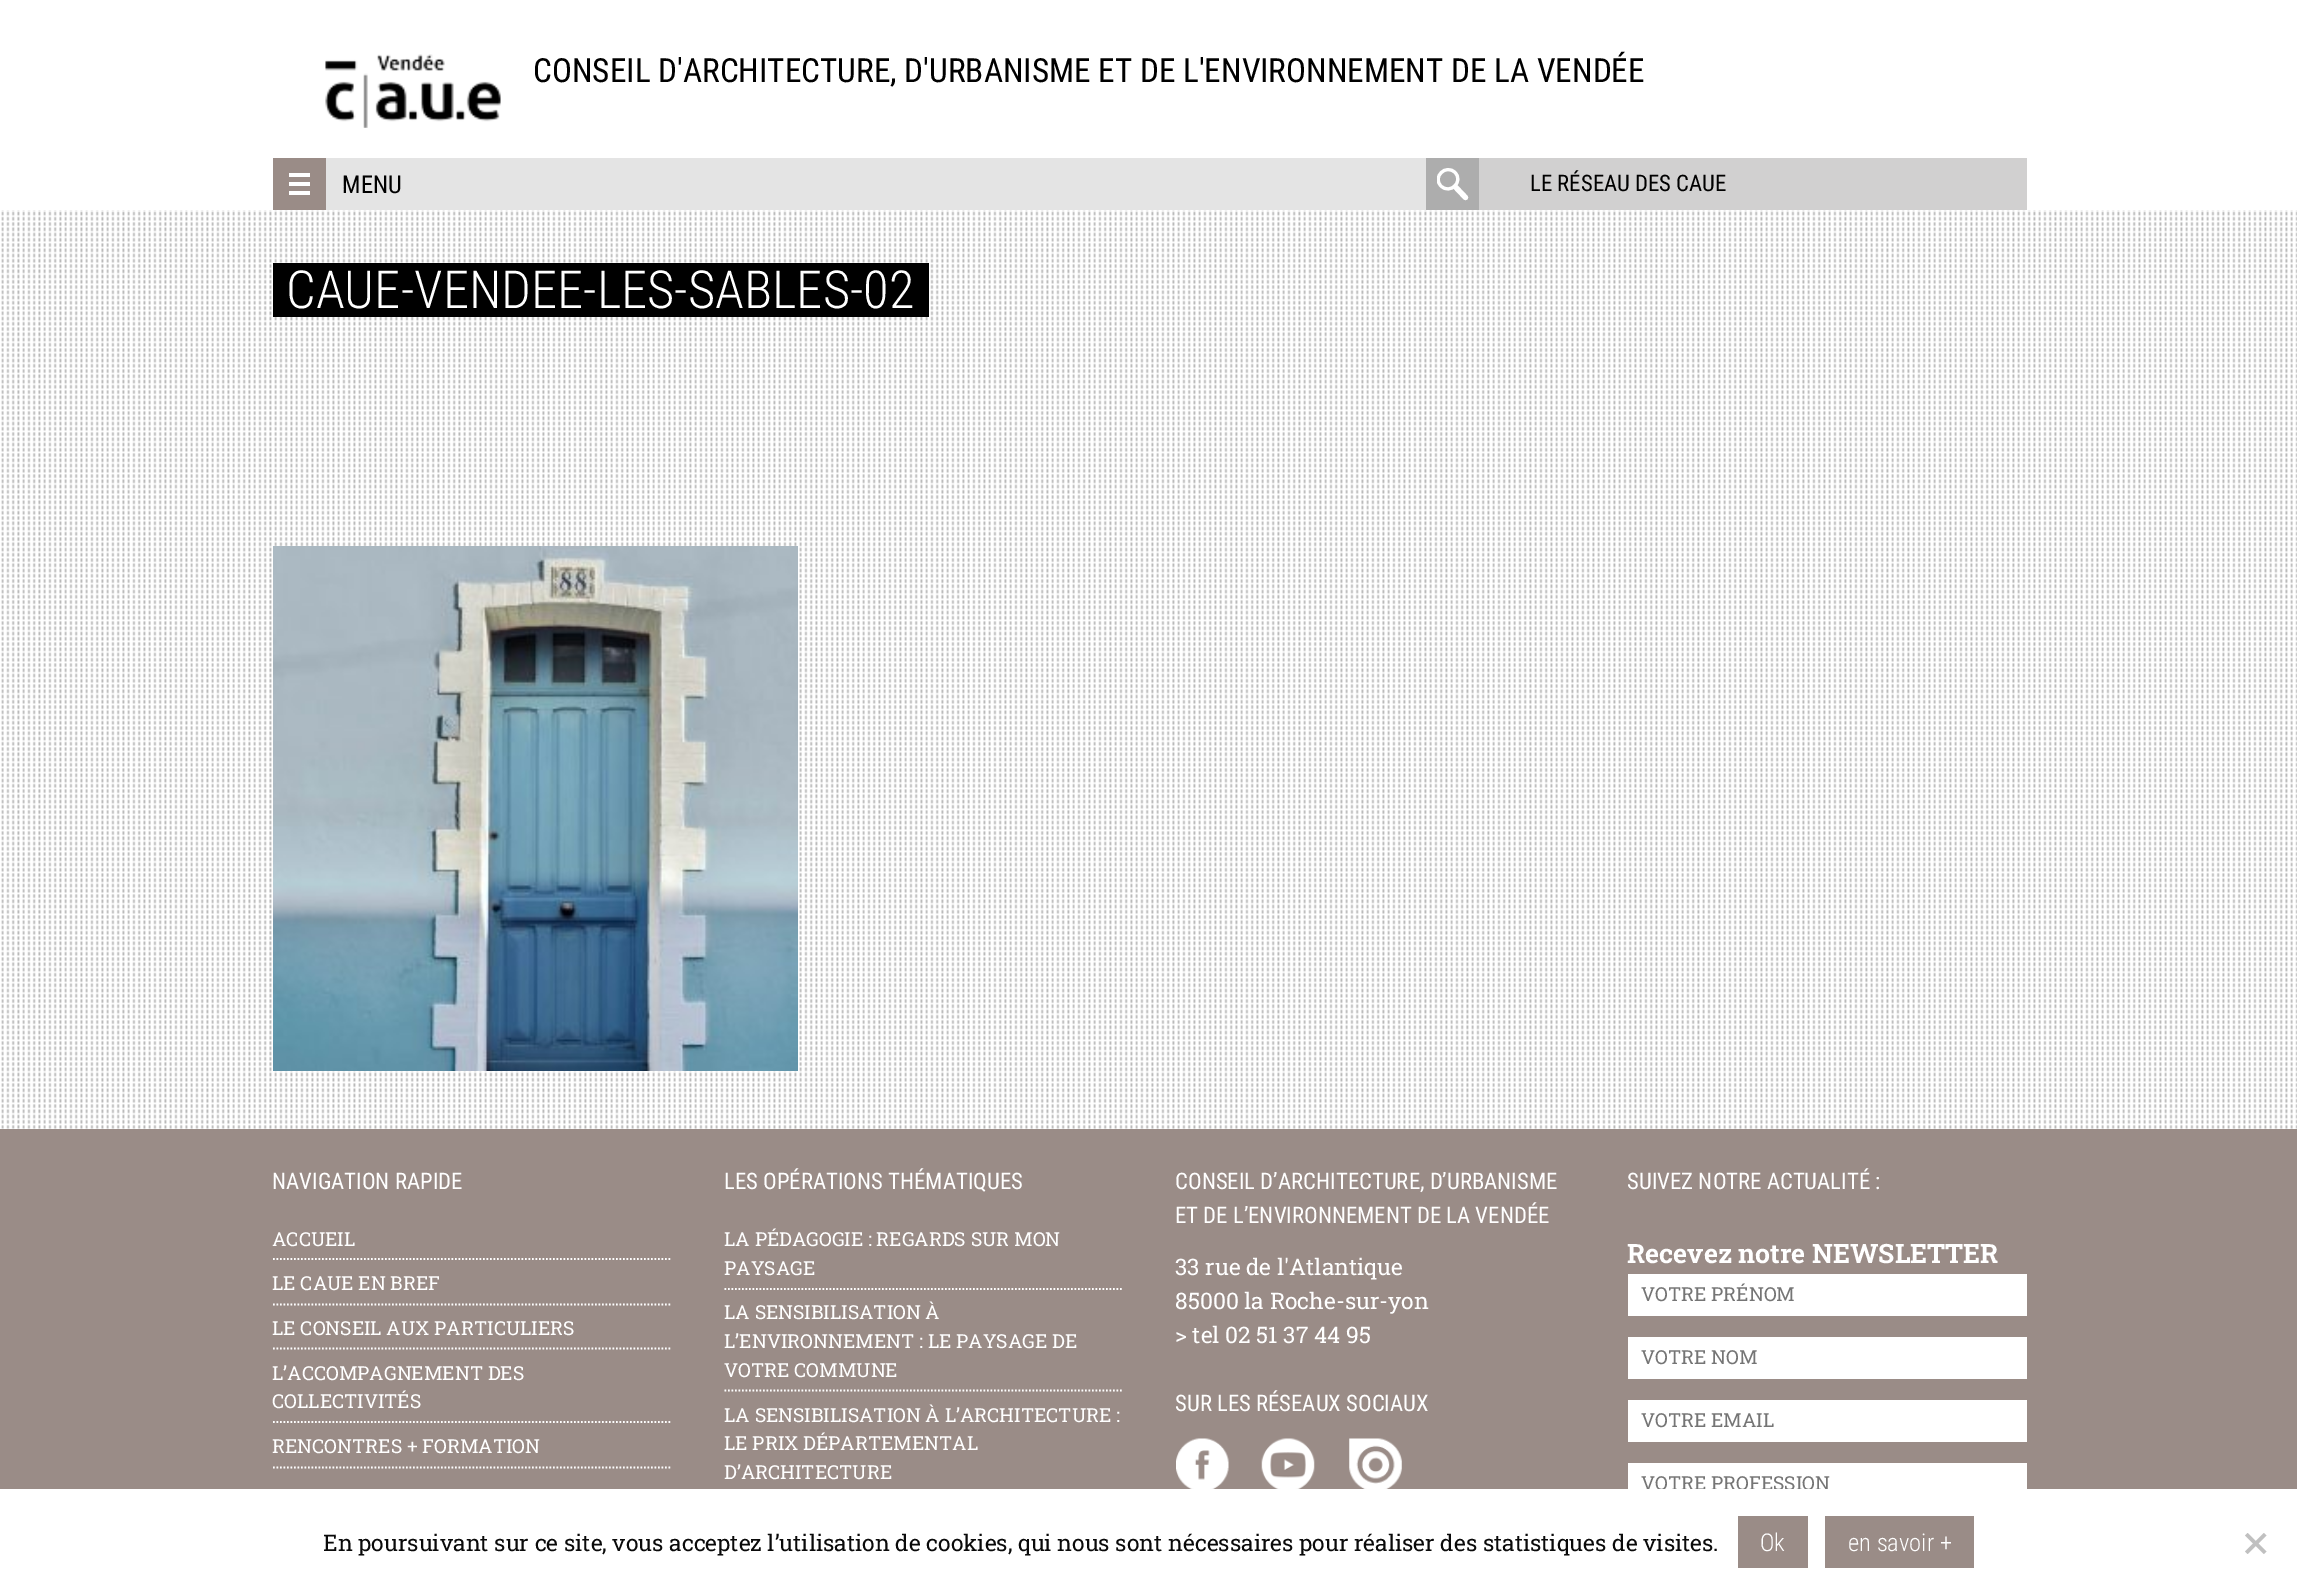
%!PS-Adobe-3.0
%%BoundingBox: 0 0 2297 1596
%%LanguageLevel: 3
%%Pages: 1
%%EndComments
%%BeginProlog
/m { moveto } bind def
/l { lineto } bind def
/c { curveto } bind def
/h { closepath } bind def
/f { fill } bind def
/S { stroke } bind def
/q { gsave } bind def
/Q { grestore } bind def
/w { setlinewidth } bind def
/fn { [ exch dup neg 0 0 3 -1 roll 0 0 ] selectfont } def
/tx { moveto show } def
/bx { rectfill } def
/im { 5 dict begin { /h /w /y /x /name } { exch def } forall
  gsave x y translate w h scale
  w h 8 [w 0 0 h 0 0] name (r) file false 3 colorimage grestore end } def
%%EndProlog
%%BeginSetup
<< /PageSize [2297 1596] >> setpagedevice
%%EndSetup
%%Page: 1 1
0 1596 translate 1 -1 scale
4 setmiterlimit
1 setgray
0 0 2297 1596 bx
(image0.raw) 1 210 2296 919 im
(image1.raw) 325 54 176 74 im
/RobotoCondensed-Regular 33.25 fn
0 setgray
(CONSEIL D'ARCHITECTURE, D'URBANISME ET DE L'ENVIRONNEMENT DE LA VENDÉE) 533 82 tx
0.604 0.549 0.529 setrgbcolor
273 158 53 52 bx
1 setgray
289 182 21 4 bx
289 173 21 4 bx
289 191 21 4 bx
0.894 setgray
326 158 1100 52 bx
/RobotoCondensed-Regular 24.5 fn
0 setgray
(MENU) 342 193 tx
0.678 setgray
1426 158 53 52 bx
q
1437 168 31 32 rectclip
1 setgray
3.1 w
1455 172.5 m 1464 181.5 1450 195 1441 186 c 1432 177 1446 163.5 1455 172.5 c h S
Q
1 setgray
5.2 w
1 setlinecap
1465.5 197.5 m 1455.5 187 l S
0.82 0.816 0.816 setrgbcolor
1479 158 548 52 bx
/RobotoCondensed-Regular 22.75 fn
0 setgray
(LE RÉSEAU DES CAUE) 1530 191 tx
273 263 656 54 bx
/RobotoCondensed-Light 52.5 fn
1 setgray
(CAUE-VENDEE-LES-SABLES-02) 286 308 tx
(image2.raw) 273 546 525 525 im
0.604 0.549 0.529 setrgbcolor
0 1129 2297 360 bx
/RobotoCondensed-Regular 22.75 fn
1 setgray
(NAVIGATION RAPIDE) 272 1189 tx
1.8 w
0 setlinecap
[1.75 1.75] 0 setdash
273 1259 m 672 1259 l S
/RobotoSlab-Regular 19.25 fn
(ACCUEIL) 272 1246 tx
273 1304.5 m 672 1304.5 l S
(LE CAUE EN BREF) 272 1290 tx
273 1348.5 m 672 1348.5 l S
(LE CONSEIL AUX PARTICULIERS) 272 1335 tx
273 1422 m 672 1422 l S
(L’ACCOMPAGNEMENT DES) 272 1380 tx
(COLLECTIVITÉS) 272 1408 tx
273 1467.5 m 672 1467.5 l S
(RENCONTRES + FORMATION) 272 1453 tx
/RobotoCondensed-Regular 22.75 fn
(LES OPÉRATIONS THÉMATIQUES) 724 1189 tx
724.5 1289 m 1123.5 1289 l S
/RobotoSlab-Regular 19.25 fn
(LA PÉDAGOGIE : REGARDS SUR MON) 724 1246 tx
(PAYSAGE) 724 1275 tx
724.5 1390.5 m 1123.5 1390.5 l S
(LA SENSIBILISATION À) 724 1319 tx
(L’ENVIRONNEMENT : LE PAYSAGE DE) 724 1348 tx
(VOTRE COMMUNE) 724 1377 tx
(LA SENSIBILISATION À L’ARCHITECTURE :) 724 1422 tx
(LE PRIX DÉPARTEMENTAL) 724 1450 tx
(D’ARCHITECTURE) 724 1479 tx
/RobotoCondensed-Regular 22.75 fn
(CONSEIL D’ARCHITECTURE, D’URBANISME) 1175 1189 tx
(ET DE L’ENVIRONNEMENT DE LA VENDÉE) 1175 1223 tx
/RobotoSlab-Regular 22.75 fn
(33 rue de l'Atlantique) 1175 1275 tx
(85000 la Roche-sur-yon) 1175 1309 tx
(> tel 02 51 37 44 95) 1175 1343 tx
/RobotoCondensed-Regular 22.75 fn
(SUR LES RÉSEAUX SOCIAUX) 1175 1411 tx
(image3.raw) 1176 1438 53 51 im
(image4.raw) 1261 1438 54 51 im
(image5.raw) 1349 1438 53 51 im
(SUIVEZ NOTRE ACTUALITÉ :) 1627 1189 tx
/RobotoSlab-Bold 26.6 fn
(Recevez notre NEWSLETTER) 1627 1263 tx
1628 1274 399 42 bx
/RobotoSlab-Regular 19.25 fn
0.459 setgray
(VOTRE PRÉNOM) 1641 1301 tx
1 setgray
1628 1337 399 42 bx
0.459 setgray
(VOTRE NOM) 1641 1364 tx
1 setgray
1628 1400 399 42 bx
0.459 setgray
(VOTRE EMAIL) 1641 1427 tx
1 setgray
1628 1463 399 26 bx
0.459 setgray
(VOTRE PROFESSION) 1641 1490 tx
1 setgray
1646 1489 182 2 bx
/RobotoSlab-Regular 22.75 fn
0.039 setgray
(En poursuivant sur ce site, vous acceptez l’utilisation de cookies, qui nous sont nécessaires pour réaliser des statistiques de visites.) 323 1551 tx
0.604 0.549 0.529 setrgbcolor
1738 1516 70 52 bx
/RobotoCondensed-Light 24.5 fn
1 setgray
(Ok) 1760 1551 tx
0.604 0.549 0.529 setrgbcolor
1825 1516 149 52 bx
1 setgray
(en savoir +) 1848 1551 tx
0.753 setgray
2264 1533 m 2266.5 1535.5 l 2247.5 1554 l 2245 1551.5 l h f
2245 1535.5 m 2247.5 1533 l 2266.5 1551.5 l 2264 1554 l h f
showpage
%%EOF
